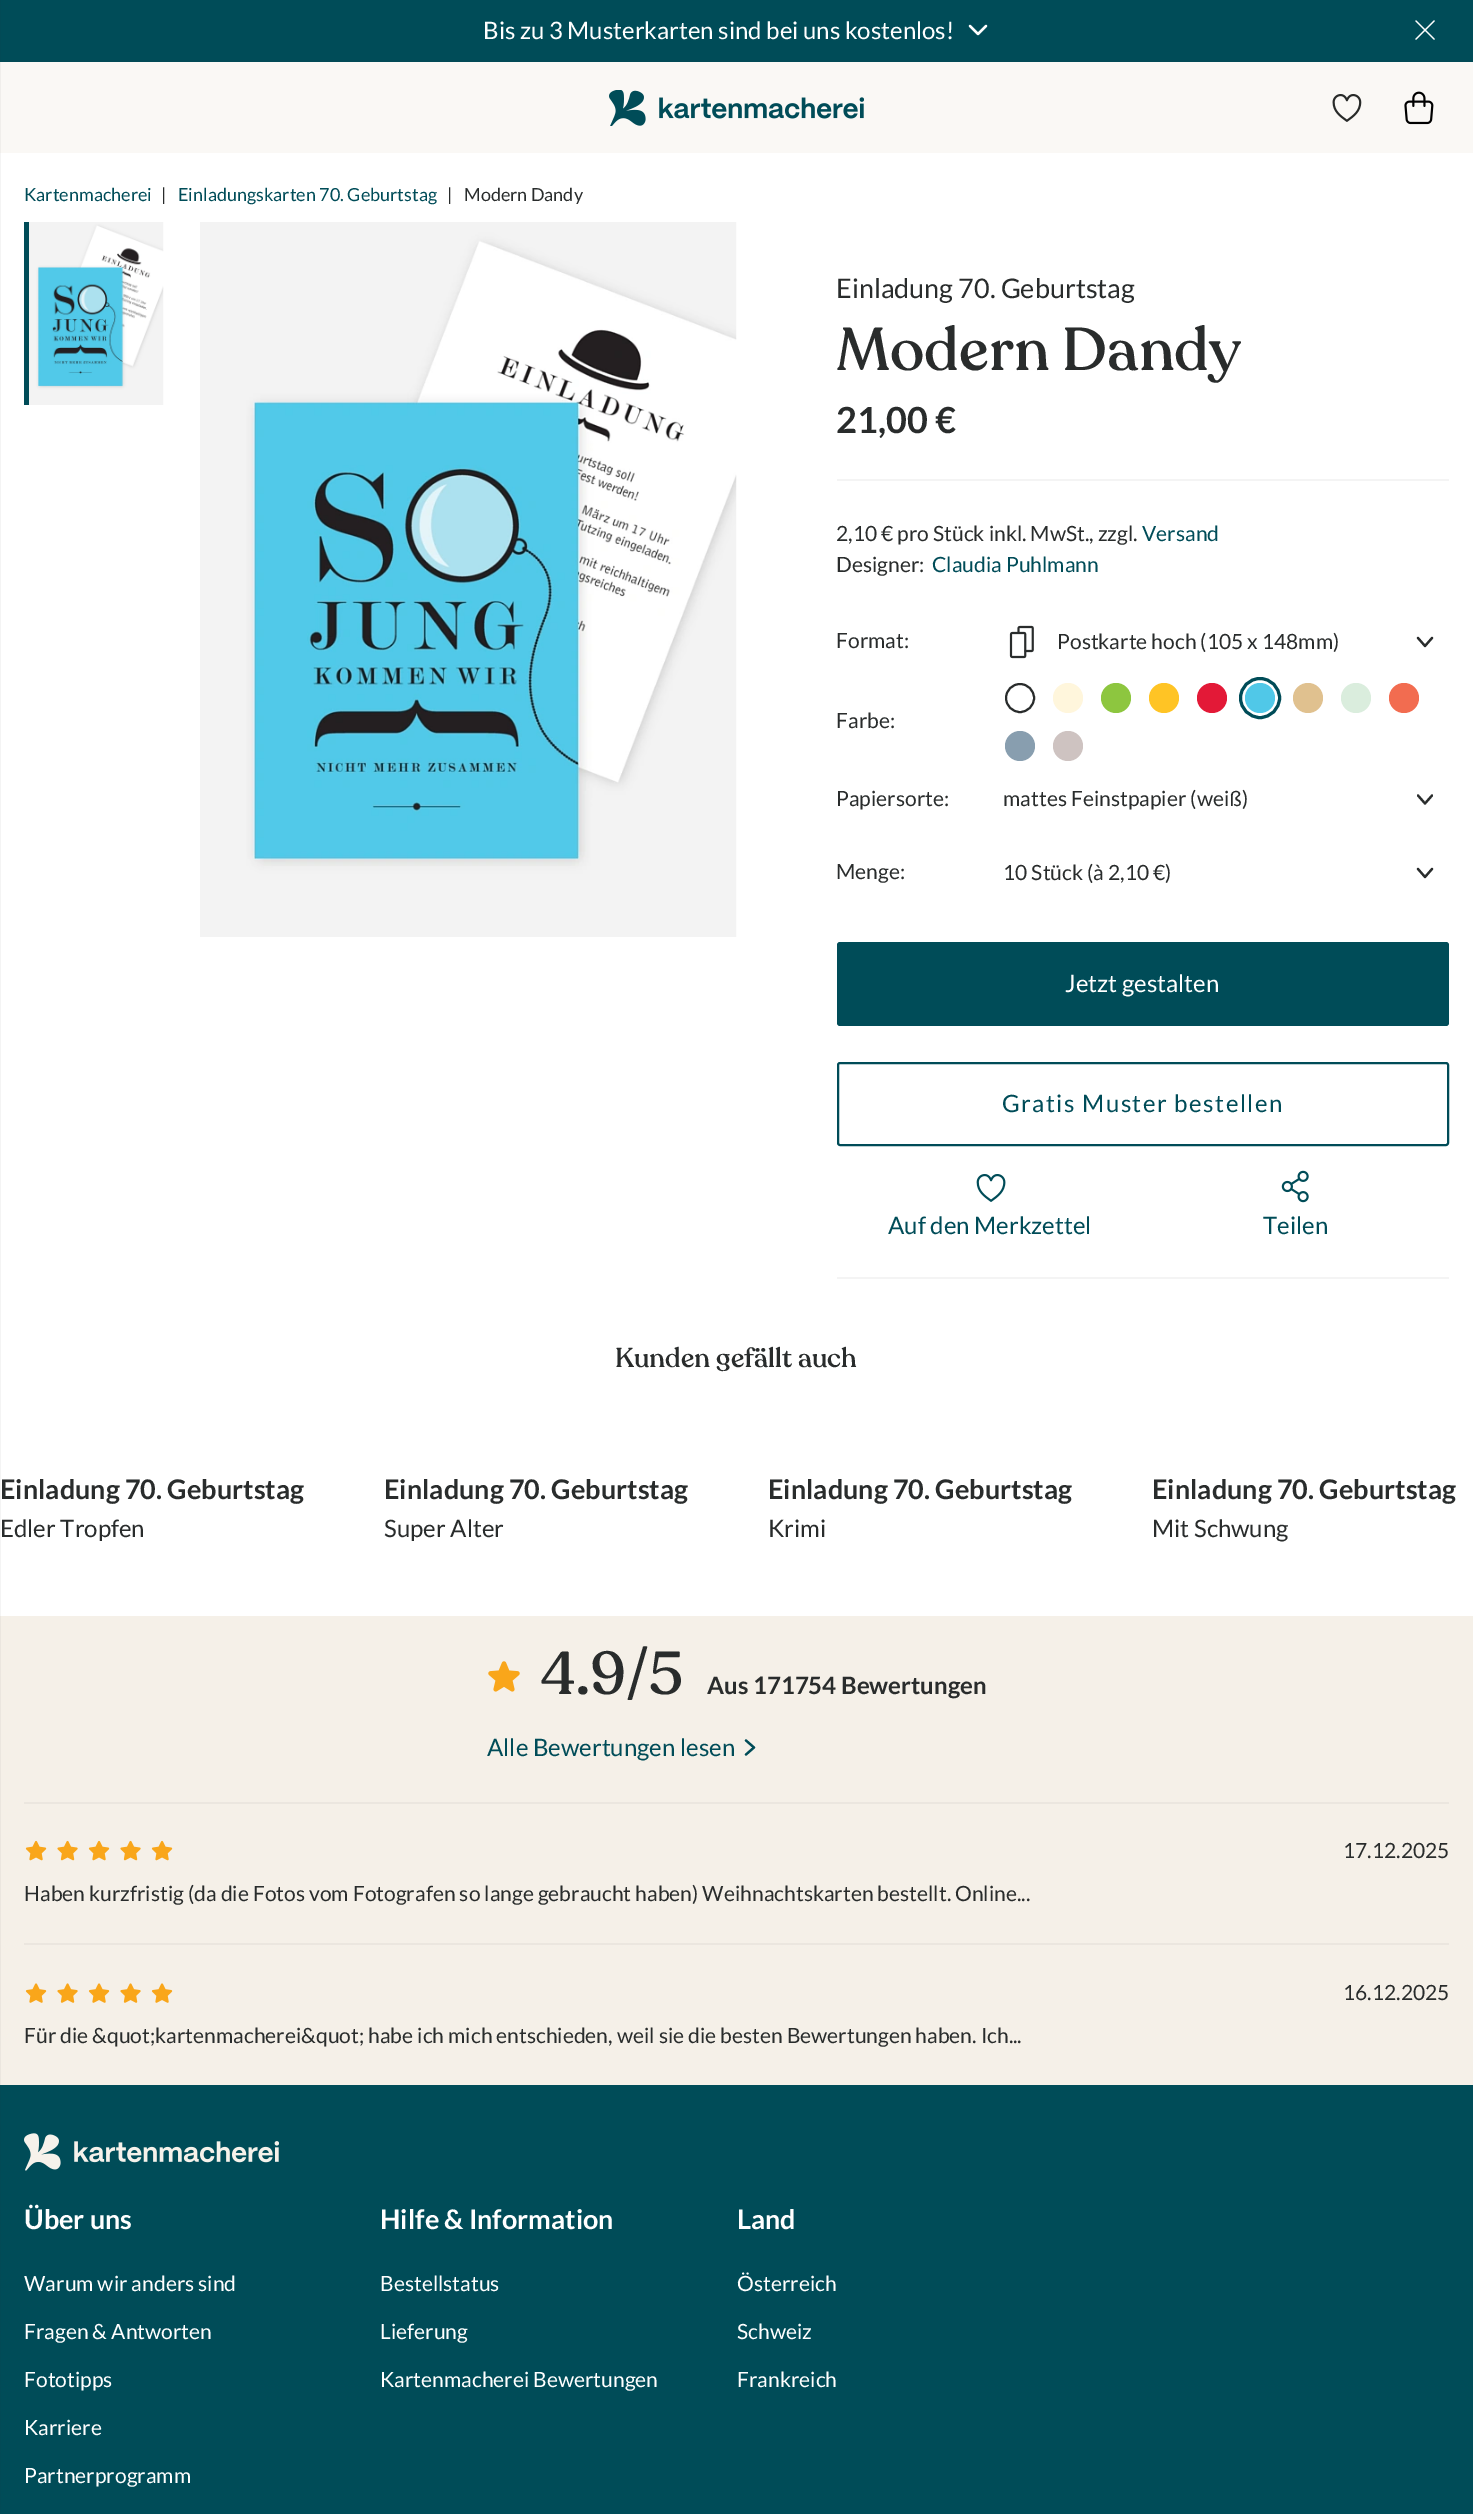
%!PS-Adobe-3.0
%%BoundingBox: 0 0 1473 2514
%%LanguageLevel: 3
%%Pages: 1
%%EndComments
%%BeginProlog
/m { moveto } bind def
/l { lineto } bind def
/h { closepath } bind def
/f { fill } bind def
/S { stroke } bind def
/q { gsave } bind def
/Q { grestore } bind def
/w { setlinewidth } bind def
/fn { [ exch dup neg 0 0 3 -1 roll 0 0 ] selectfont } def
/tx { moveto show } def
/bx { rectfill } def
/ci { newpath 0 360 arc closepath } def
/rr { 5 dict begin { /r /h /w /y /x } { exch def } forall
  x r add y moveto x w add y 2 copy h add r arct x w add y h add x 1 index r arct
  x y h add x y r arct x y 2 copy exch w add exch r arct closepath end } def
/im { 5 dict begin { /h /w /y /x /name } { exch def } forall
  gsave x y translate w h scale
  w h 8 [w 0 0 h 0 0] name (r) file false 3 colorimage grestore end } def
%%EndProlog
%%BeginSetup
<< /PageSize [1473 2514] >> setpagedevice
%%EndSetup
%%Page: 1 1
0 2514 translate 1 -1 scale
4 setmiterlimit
1 setgray
0 0 1473 2514 bx
0.957 setgray
0 153 1 1463 bx
0 0.298 0.345 setrgbcolor
1 0 1472 60 bx
0.008 0.29 0.337 setrgbcolor
0 0 1 62 bx
0 60 1473 2 bx
/Lato-Regular 24 fn
1 setgray
(Bis zu 3 Musterkarten sind bei uns kostenlos!) 483 39 tx
2.2 w
1 setlinecap
1 setlinejoin
986 26 m 978 34 l 970 26 l S
(image0.raw) 1415 20 20 20 im
0.98 0.973 0.961 setrgbcolor
1 62 1472 91 bx
0.941 0.933 0.922 setrgbcolor
0 62 1 91 bx
(image1.raw) 609 90 255 36 im
(image2.raw) 1332 94 30 28 im
(image3.raw) 1404 91 30 34 im
/Lato-Regular 18 fn
0 0.298 0.345 setrgbcolor
(Kartenmacherei) 24 201 tx
0.161 0.173 0.173 setrgbcolor
(|) 161 201 tx
0 0.298 0.345 setrgbcolor
(Einladungskarten 70. Geburtstag) 178 201 tx
0.161 0.173 0.173 setrgbcolor
(|) 447 201 tx
(Modern Dandy) 464 201 tx
0 0.298 0.345 setrgbcolor
24 222 5 183 bx
(image4.raw) 29 222 135 183 im
(image5.raw) 200 222 537 715 im
0.957 setgray
837 479 612 2 bx
/Lato-Regular 27 fn
0.161 0.173 0.173 setrgbcolor
(Einladung 70. Geburtstag) 836 298 tx
/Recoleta-Medium 60 fn
(Modern Dandy) 836 370 tx
/Lato-Bold 36 fn
(21,00 €) 836 433 tx
/Lato-Regular 21 fn
(2,10 € pro Stück inkl. MwSt., zzgl.) 836 541 tx
0 0.298 0.345 setrgbcolor
(Versand) 1142 541 tx
0.161 0.173 0.173 setrgbcolor
(Designer:) 836 572 tx
0 0.298 0.345 setrgbcolor
(Claudia Puhlmann) 932 572 tx
0.161 0.173 0.173 setrgbcolor
(Format:) 836 648 tx
(image6.raw) 1009 625 25 34 im
(Postkarte hoch \(105 x 148mm\)) 1057 649 tx
1432 638 m 1425 646 l 1418 638 l S
(Farbe:) 836 728 tx
2 w
0 setlinecap
0 setlinejoin
1020 698 14 ci S
1 0.965 0.863 setrgbcolor
1068 698 15 ci f
0.553 0.776 0.247 setrgbcolor
1116 698 15 ci f
1 0.769 0.145 setrgbcolor
1164 698 15 ci f
0.89 0.098 0.216 setrgbcolor
1212 698 15 ci f
0.314 0.784 0.91 setrgbcolor
1260 698 15 ci f
0 0.298 0.345 setrgbcolor
3 w
1260 698 19.5 ci S
0.878 0.757 0.561 setrgbcolor
1308 698 15 ci f
0.855 0.929 0.867 setrgbcolor
1356 698 15 ci f
0.949 0.424 0.314 setrgbcolor
1404 698 15 ci f
0.533 0.62 0.686 setrgbcolor
1020 746 15 ci f
0.808 0.765 0.757 setrgbcolor
1068 746 15 ci f
0.161 0.173 0.173 setrgbcolor
(Papiersorte:) 836 806 tx
(mattes Feinstpapier \(weiß\)) 1003 806 tx
q
1417 794.5 m 1433 794.5 l 1433 804.5 l 1417 804.5 l h clip newpath
2.2 w
1 setlinecap
1 setlinejoin
1432 795.5 m 1425 803.5 l 1418 795.5 l S
Q
(Menge:) 836 879 tx
(10 Stück \(à 2,10 €\)) 1003 880 tx
2.2 w
1 setlinecap
1 setlinejoin
1432 869 m 1425 877 l 1418 869 l S
0 0.298 0.345 setrgbcolor
837 942 612 84 3 rr f
/Lato-Regular 24 fn
1 setgray
(Jetzt gestalten) 1065 992 tx
0 0.298 0.345 setrgbcolor
2 w
0 setlinecap
0 setlinejoin
838 1063 610 82 2 rr S
1002 1112 m 1.5 0 (Gratis Muster bestellen) ashow
0.957 setgray
837 1277 612 2 bx
(image7.raw) 976 1174 30 28 im
0 0.298 0.345 setrgbcolor
(Auf den Merkzettel) 888 1234 tx
(image8.raw) 1281 1170 28 33 im
(Teilen) 1263 1234 tx
/Recoleta-Medium 27 fn
0.161 0.173 0.173 setrgbcolor
(Kunden gefällt auch) 615 1367 tx
/Lato-Bold 27 fn
(Einladung 70. Geburtstag) 0 1499 tx
/Lato-Regular 24 fn
(Edler Tropfen) 0 1537 tx
/Lato-Bold 27 fn
(Einladung 70. Geburtstag) 384 1499 tx
/Lato-Regular 24 fn
(Super Alter) 384 1537 tx
/Lato-Bold 27 fn
(Einladung 70. Geburtstag) 768 1499 tx
/Lato-Regular 24 fn
(Krimi) 768 1537 tx
/Lato-Bold 27 fn
(Einladung 70. Geburtstag) 1152 1499 tx
/Lato-Regular 24 fn
(Mit Schwung) 1152 1537 tx
0.961 0.941 0.91 setrgbcolor
1 1616 1472 469 bx
0.922 0.902 0.875 setrgbcolor
0 1616 1 469 bx
(image9.raw) 488 1661 32 31 im
/Recoleta-Medium 60 fn
0.161 0.173 0.173 setrgbcolor
(4.9/5) 541 1694 tx
/Lato-Bold 24 fn
(Aus 171754 Bewertungen) 707 1694 tx
/Lato-Regular 24 fn
0 0.298 0.345 setrgbcolor
(Alle Bewertungen lesen) 487 1756 tx
2.2 w
1 setlinecap
1 setlinejoin
746 1740.5 m 754 1747.5 l 746 1754.5 l S
0.922 0.902 0.875 setrgbcolor
24 1802 1425 2 bx
(image10.raw) 25 1840 22 21 im
(image11.raw) 57 1840 21 21 im
(image10.raw) 88 1840 22 21 im
(image11.raw) 120 1840 21 21 im
(image10.raw) 151 1840 22 21 im
/Lato-Regular 21 fn
0.161 0.173 0.173 setrgbcolor
(17.12.2025) 1343 1858 tx
(Haben kurzfristig \(da die Fotos vom Fotografen so lange gebraucht haben\) Weihnachtskarten bestellt. Online...) 24 1901 tx
0.922 0.902 0.875 setrgbcolor
24 1943 1425 2 bx
(image12.raw) 25 1983 22 20 im
(image13.raw) 57 1983 21 20 im
(image12.raw) 88 1983 22 20 im
(image13.raw) 120 1983 21 20 im
(image12.raw) 151 1983 22 20 im
0.161 0.173 0.173 setrgbcolor
(16.12.2025) 1343 2000 tx
(Für die &quot;kartenmacherei&quot; habe ich mich entschieden, weil sie die besten Bewertungen haben. Ich...) 24 2043 tx
0 0.298 0.345 setrgbcolor
1 2085 1472 429 bx
0.008 0.29 0.337 setrgbcolor
0 2085 1 429 bx
(image14.raw) 24 2133 255 38 im
/Lato-Bold 27 fn
1 setgray
(Über uns) 24 2229 tx
/Lato-Regular 21 fn
(Warum wir anders sind) 24 2291 tx
(Fragen & Antworten) 24 2339 tx
(Fototipps) 24 2387 tx
(Karriere) 24 2435 tx
(Partnerprogramm) 24 2483 tx
/Lato-Bold 27 fn
(Hilfe & Information) 380 2229 tx
/Lato-Regular 21 fn
(Bestellstatus) 380 2291 tx
(Lieferung) 380 2339 tx
(Kartenmacherei Bewertungen) 380 2387 tx
/Lato-Bold 27 fn
(Land) 737 2229 tx
/Lato-Regular 21 fn
(Österreich) 737 2291 tx
(Schweiz) 737 2339 tx
(Frankreich) 737 2387 tx
showpage
%%EOF
